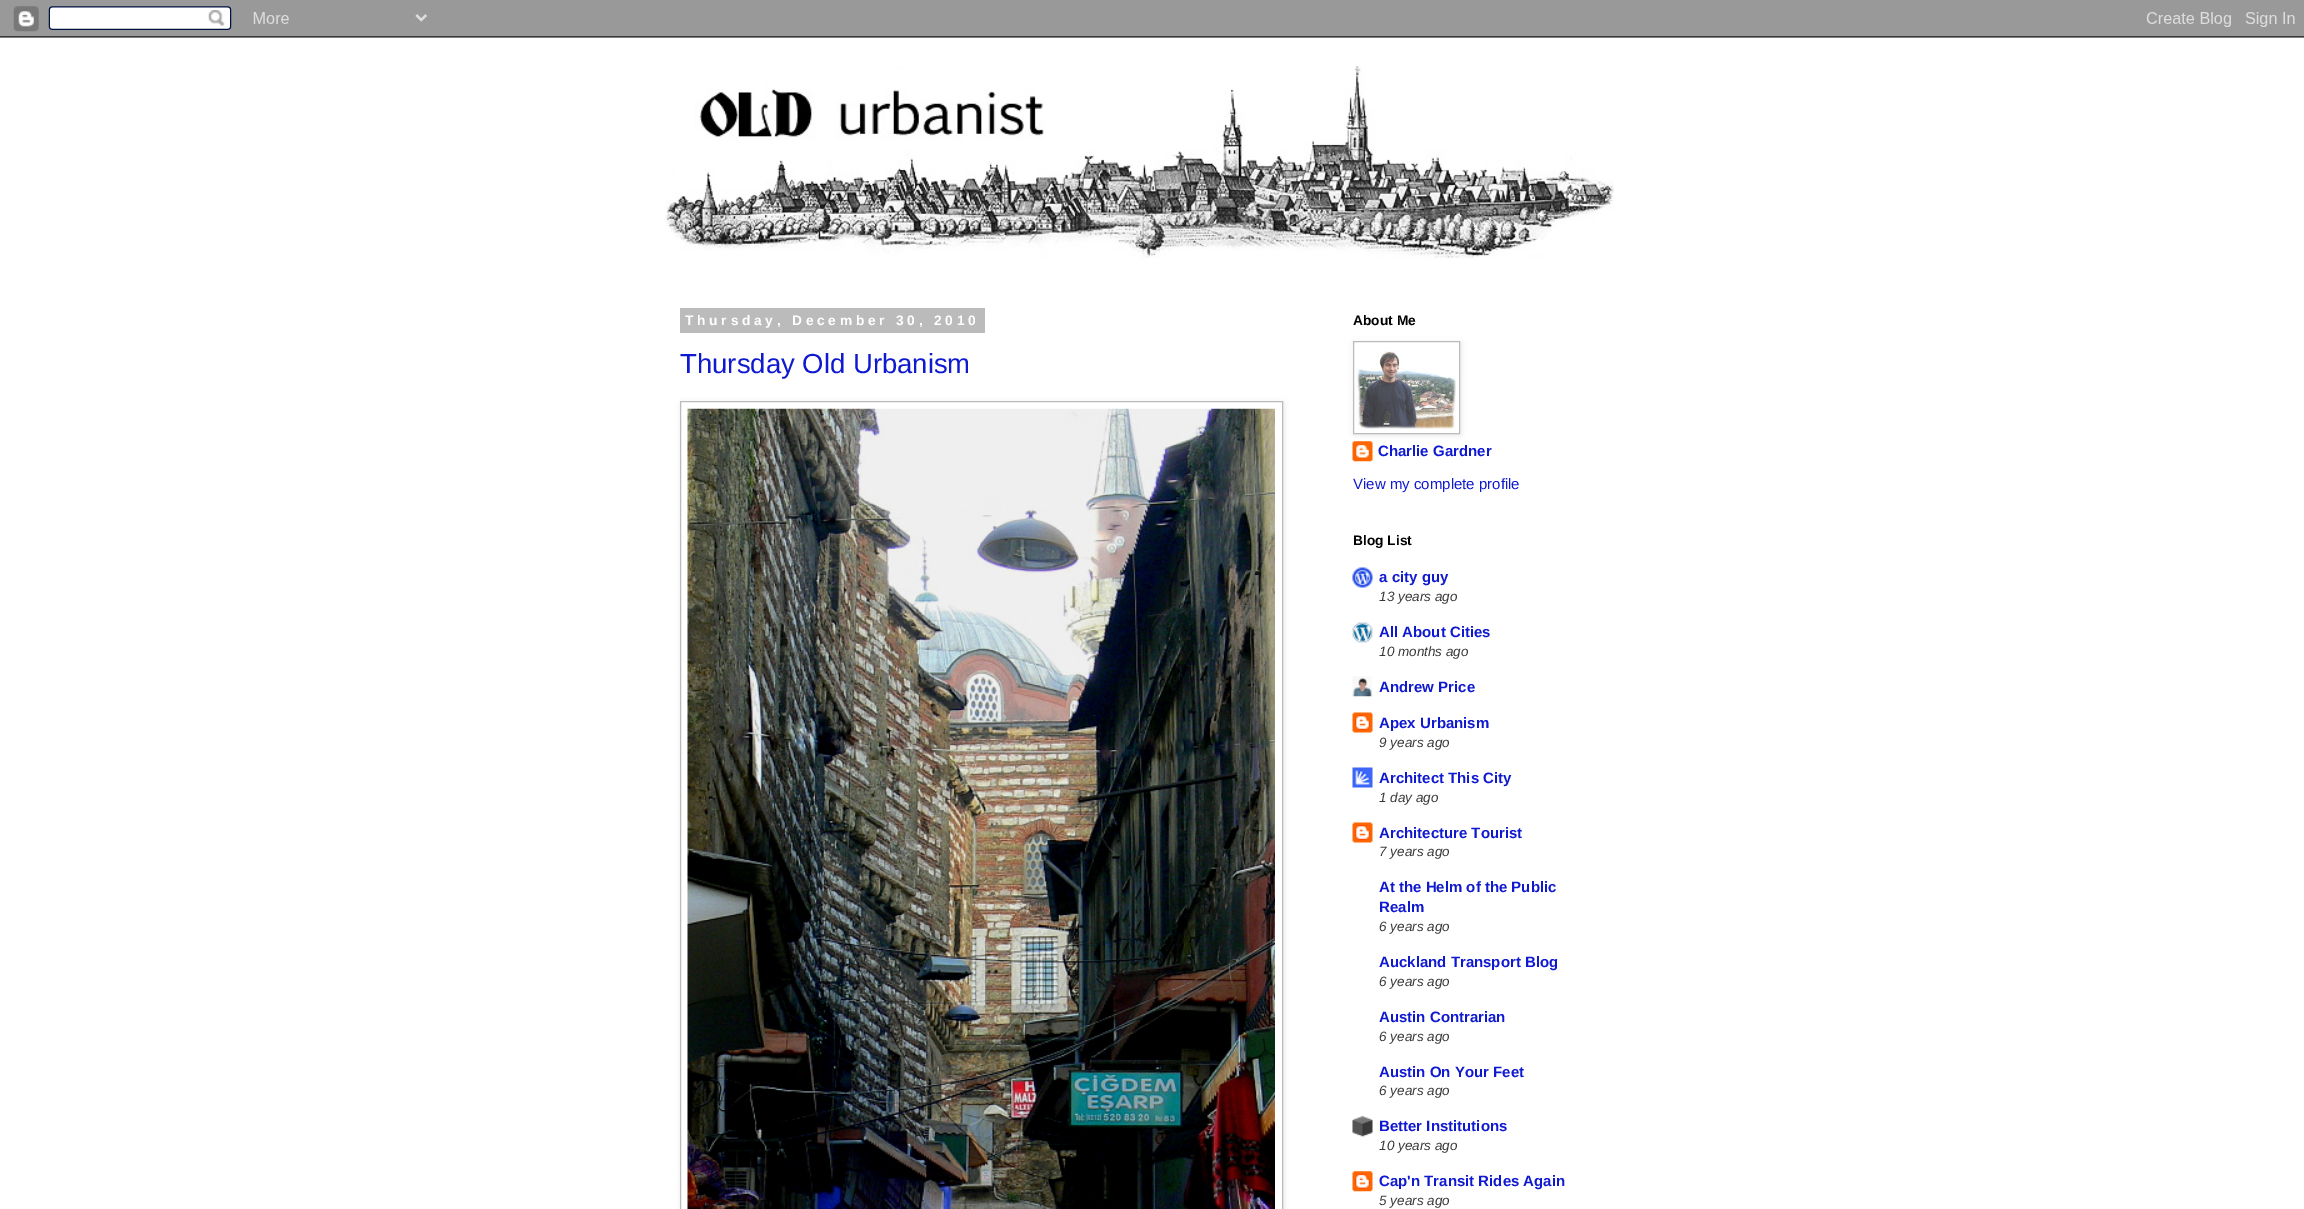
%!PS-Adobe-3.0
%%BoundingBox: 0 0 2304 1209
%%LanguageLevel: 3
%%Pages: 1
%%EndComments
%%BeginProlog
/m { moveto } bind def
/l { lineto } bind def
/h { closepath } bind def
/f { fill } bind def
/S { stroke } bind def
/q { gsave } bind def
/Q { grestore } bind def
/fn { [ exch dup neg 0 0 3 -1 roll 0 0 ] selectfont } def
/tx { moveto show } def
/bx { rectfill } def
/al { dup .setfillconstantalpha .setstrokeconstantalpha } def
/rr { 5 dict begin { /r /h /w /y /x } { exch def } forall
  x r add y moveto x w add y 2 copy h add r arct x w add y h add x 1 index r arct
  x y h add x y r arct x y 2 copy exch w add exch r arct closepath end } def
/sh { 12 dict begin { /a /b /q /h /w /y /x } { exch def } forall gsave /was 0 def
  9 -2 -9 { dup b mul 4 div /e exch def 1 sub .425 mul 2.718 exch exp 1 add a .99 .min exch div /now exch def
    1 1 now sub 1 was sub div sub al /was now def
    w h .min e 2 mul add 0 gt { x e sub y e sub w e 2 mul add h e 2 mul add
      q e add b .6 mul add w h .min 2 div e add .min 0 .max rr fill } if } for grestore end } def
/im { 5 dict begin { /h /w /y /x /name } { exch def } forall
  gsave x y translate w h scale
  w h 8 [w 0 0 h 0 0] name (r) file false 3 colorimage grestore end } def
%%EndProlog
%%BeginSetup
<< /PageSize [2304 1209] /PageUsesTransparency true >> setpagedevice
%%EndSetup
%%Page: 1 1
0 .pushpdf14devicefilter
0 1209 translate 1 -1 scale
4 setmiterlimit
1 setgray
0 0 2304 1209 bx
(image0.raw) 0 0 2304 38 im
(image1.raw) 665 66 949 193 im
0.733 setgray
680 308 305 25 bx
/LiberationSans-Bold 13.75 fn
1 setgray
685 325 m 3.75 0 (Thursday, December 30, 2010) ashow
/LiberationSans-Regular 27.5 fn
0.059 0.098 0.816 setrgbcolor
(Thursday Old Urbanism) 680 373 tx
0 setgray
681 403 603 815 0 3 0.1 sh
1 setgray
680.5 401.5 m 1282.5 401.5 l 1282.5 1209.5 l 680.5 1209.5 l h q f Q
0.733 setgray
S
(image2.raw) 687 408 588 801 im
/LiberationSans-Bold 13.75 fn
0 setgray
(About Me) 1353 325 tx
(image4.raw) 1352 441 21 21 im
1354 343 107 92 0 3 0.1 sh
1 setgray
1353.5 341.5 m 1459.5 341.5 l 1459.5 433.5 l 1353.5 433.5 l h q f Q
0.733 setgray
S
(image3.raw) 1356 351 101 78 im
/LiberationSans-Bold 15 fn
0.059 0.098 0.816 setrgbcolor
(Charlie Gardner) 1378 456 tx
/LiberationSans-Regular 15 fn
(View my complete profile) 1353 489 tx
/LiberationSans-Bold 13.75 fn
0 setgray
(Blog List) 1353 545 tx
(image5.raw) 1352 567 21 21 im
/LiberationSans-Bold 15 fn
0.059 0.098 0.816 setrgbcolor
(a city guy) 1379 582 tx
/LiberationSans-Italic 13.5 fn
0.224 setgray
(13 years ago) 1379 601 tx
(image6.raw) 1352 622 21 21 im
/LiberationSans-Bold 15 fn
0.059 0.098 0.816 setrgbcolor
(All About Cities) 1379 637 tx
/LiberationSans-Italic 13.5 fn
0.224 setgray
(10 months ago) 1379 656 tx
(image7.raw) 1352 676 21 21 im
/LiberationSans-Bold 15 fn
0.059 0.098 0.816 setrgbcolor
(Andrew Price) 1379 692 tx
(image8.raw) 1352 712 21 21 im
(Apex Urbanism) 1379 728 tx
/LiberationSans-Italic 13.5 fn
0.224 setgray
(9 years ago) 1379 747 tx
(image9.raw) 1352 767 21 21 im
/LiberationSans-Bold 15 fn
0.059 0.098 0.816 setrgbcolor
(Architect This City) 1379 783 tx
/LiberationSans-Italic 13.5 fn
0.224 setgray
(1 day ago) 1379 802 tx
(image8.raw) 1352 822 21 21 im
/LiberationSans-Bold 15 fn
0.059 0.098 0.816 setrgbcolor
(Architecture Tourist) 1379 838 tx
/LiberationSans-Italic 13.5 fn
0.224 setgray
(7 years ago) 1379 856 tx
/LiberationSans-Bold 15 fn
0.059 0.098 0.816 setrgbcolor
(At the Helm of the Public) 1379 892 tx
(Realm) 1379 912 tx
/LiberationSans-Italic 13.5 fn
0.224 setgray
(6 years ago) 1379 931 tx
/LiberationSans-Bold 15 fn
0.059 0.098 0.816 setrgbcolor
(Auckland Transport Blog) 1379 967 tx
/LiberationSans-Italic 13.5 fn
0.224 setgray
(6 years ago) 1379 986 tx
/LiberationSans-Bold 15 fn
0.059 0.098 0.816 setrgbcolor
(Austin Contrarian) 1379 1022 tx
/LiberationSans-Italic 13.5 fn
0.224 setgray
(6 years ago) 1379 1041 tx
/LiberationSans-Bold 15 fn
0.059 0.098 0.816 setrgbcolor
(Austin On Your Feet) 1379 1077 tx
/LiberationSans-Italic 13.5 fn
0.224 setgray
(6 years ago) 1379 1095 tx
(image10.raw) 1352 1116 21 21 im
/LiberationSans-Bold 15 fn
0.059 0.098 0.816 setrgbcolor
(Better Institutions) 1379 1131 tx
/LiberationSans-Italic 13.5 fn
0.224 setgray
(10 years ago) 1379 1150 tx
(image11.raw) 1352 1171 21 21 im
/LiberationSans-Bold 15 fn
0.059 0.098 0.816 setrgbcolor
(Cap'n Transit Rides Again) 1379 1186 tx
/LiberationSans-Italic 13.5 fn
0.224 setgray
(5 years ago) 1379 1205 tx
.poppdf14devicefilter showpage
%%EOF
